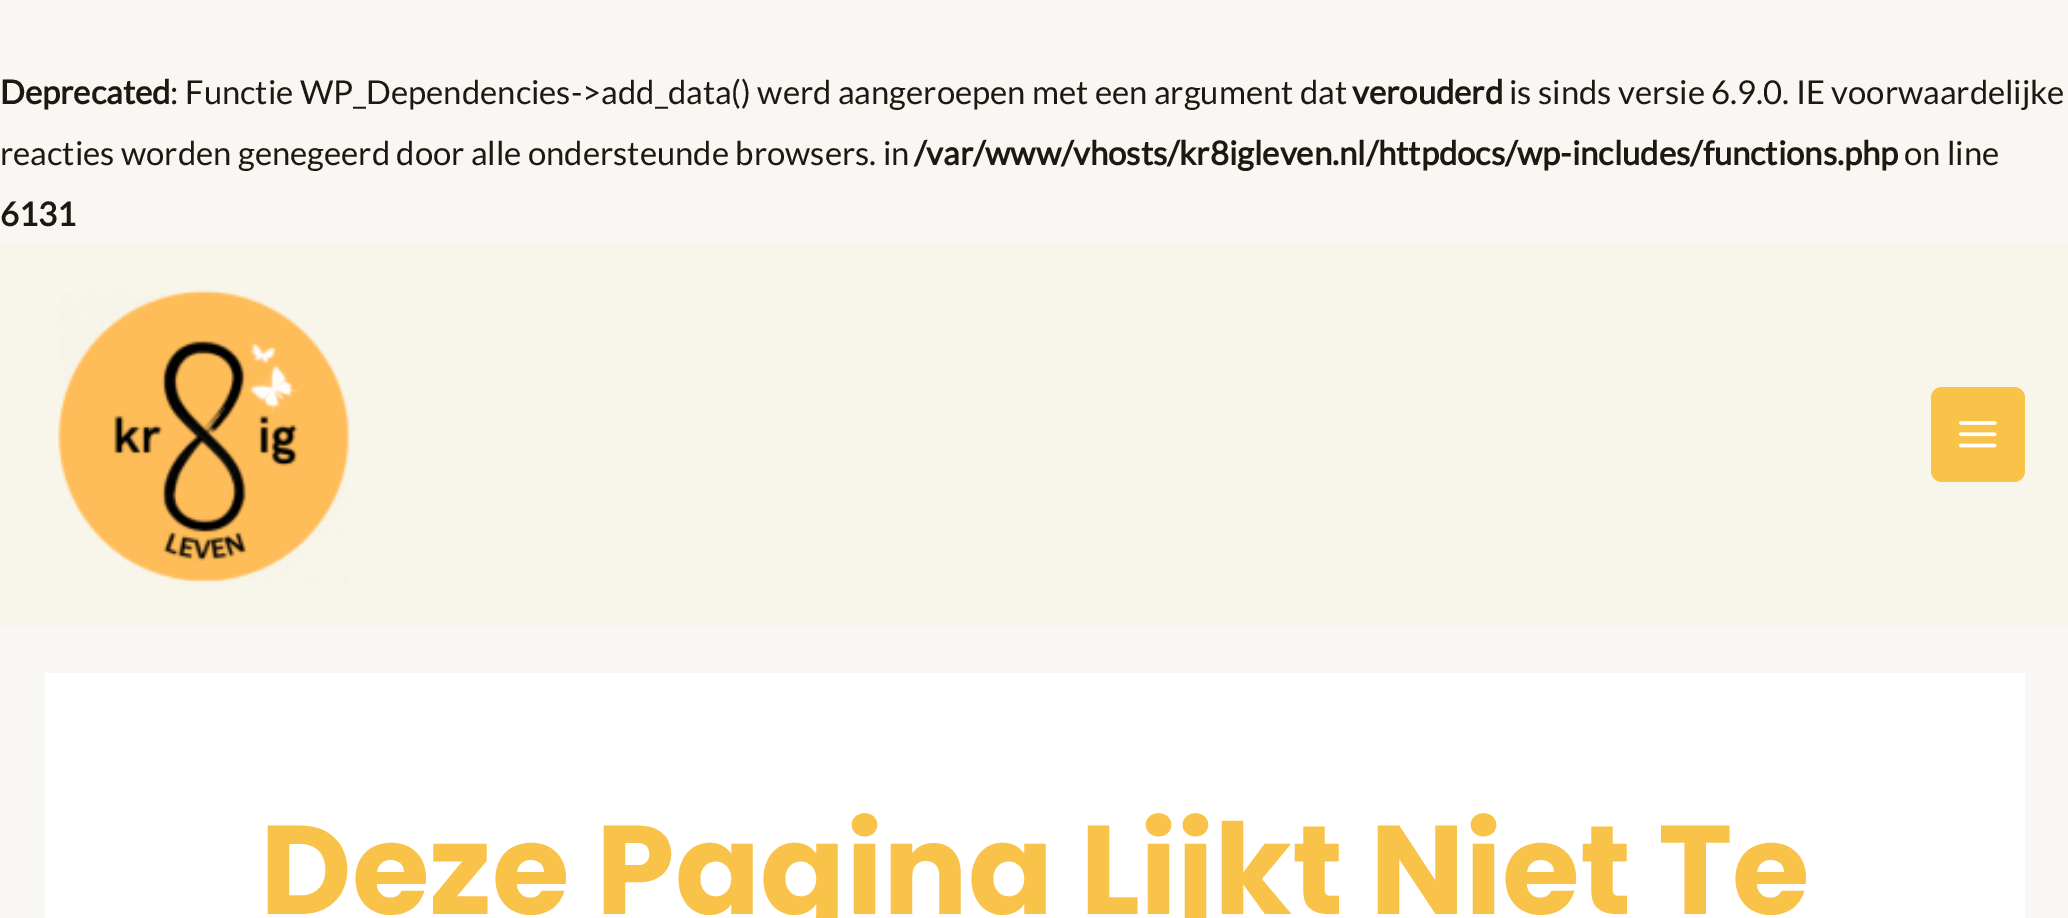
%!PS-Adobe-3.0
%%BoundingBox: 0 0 2068 918
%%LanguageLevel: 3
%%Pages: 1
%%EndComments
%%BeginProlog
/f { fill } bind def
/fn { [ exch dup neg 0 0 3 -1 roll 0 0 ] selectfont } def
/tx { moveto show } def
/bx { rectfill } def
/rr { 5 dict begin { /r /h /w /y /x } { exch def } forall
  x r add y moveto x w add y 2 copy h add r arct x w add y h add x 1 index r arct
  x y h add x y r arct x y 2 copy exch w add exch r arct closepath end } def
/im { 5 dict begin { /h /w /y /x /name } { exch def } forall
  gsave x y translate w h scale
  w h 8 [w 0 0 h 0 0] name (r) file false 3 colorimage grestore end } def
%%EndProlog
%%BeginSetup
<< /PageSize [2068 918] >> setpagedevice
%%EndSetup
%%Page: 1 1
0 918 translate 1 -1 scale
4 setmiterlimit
0.973 0.969 0.953 setrgbcolor
0 0 2068 918 bx
/Lato-Bold 32.85 fn
0.118 0.094 0.063 setrgbcolor
(Deprecated) 0 104 tx
/Lato-Regular 32.85 fn
(:) 170 104 tx
(Functie WP_Dependencies->add_data\(\) werd aangeroepen met een argument dat) 185 104 tx
/Lato-Bold 32.85 fn
(verouderd) 1352 104 tx
/Lato-Regular 32.85 fn
(is sinds versie 6.9.0. IE voorwaardelijke) 1509 104 tx
(reacties worden genegeerd door alle ondersteunde browsers. in) 0 165 tx
/Lato-Bold 32.85 fn
(/var/www/vhosts/kr8igleven.nl/httpdocs/wp-includes/functions.php) 914 165 tx
/Lato-Regular 32.85 fn
(on line) 1904 165 tx
/Lato-Bold 32.85 fn
(6131) 0 226 tx
0.973 0.965 0.918 setrgbcolor
0 243 2068 383 bx
(image0.raw) 58 289 292 295 im
0.976 0.765 0.286 setrgbcolor
1931 387 94 95 11 rr f
(image1.raw) 1959 421 38 27 im
1 setgray
45 673 1980 245 bx
/Poppins-Bold 126 fn
0.976 0.765 0.286 setrgbcolor
(Deze Pagina Lijkt Niet Te) 260 914 tx
showpage
%%EOF
